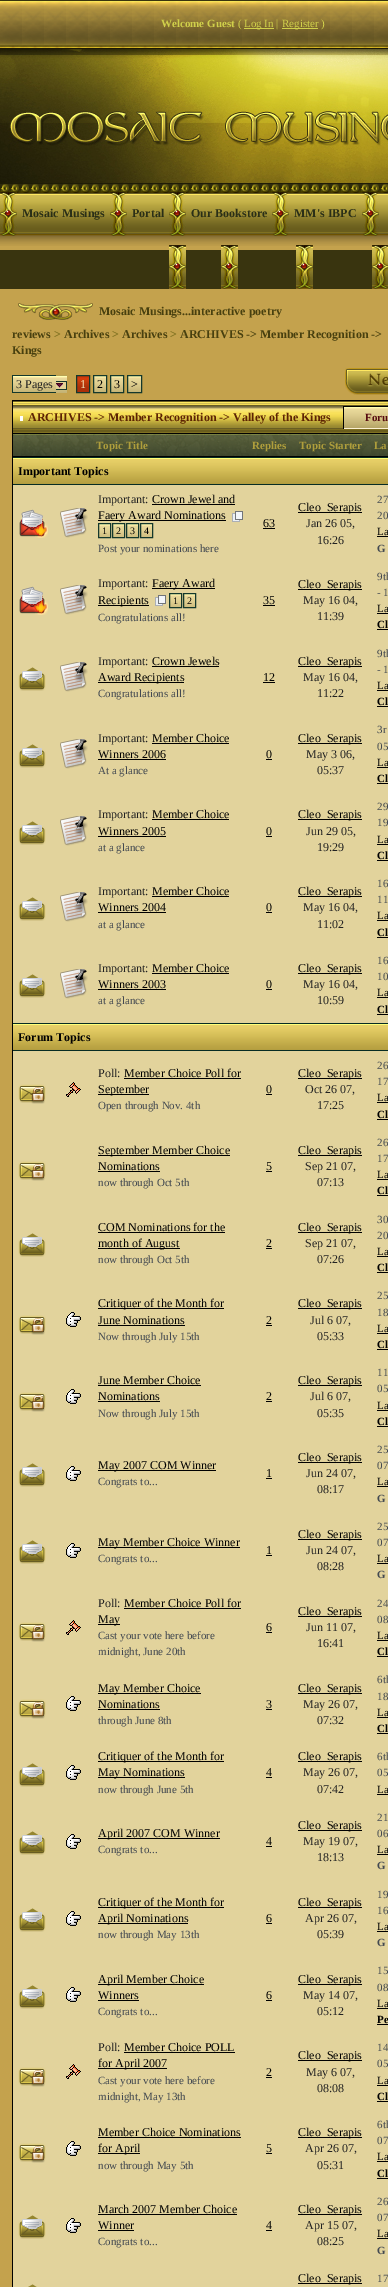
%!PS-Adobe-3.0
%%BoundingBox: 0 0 388 2287
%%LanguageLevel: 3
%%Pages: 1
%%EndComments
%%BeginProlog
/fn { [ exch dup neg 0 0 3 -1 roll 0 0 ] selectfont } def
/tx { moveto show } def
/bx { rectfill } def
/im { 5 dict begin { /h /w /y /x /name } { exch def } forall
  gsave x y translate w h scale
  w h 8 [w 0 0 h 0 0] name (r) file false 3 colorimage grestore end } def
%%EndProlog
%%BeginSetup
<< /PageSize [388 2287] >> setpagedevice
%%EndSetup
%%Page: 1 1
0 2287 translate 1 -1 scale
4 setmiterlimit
0.224 0.204 0.059 setrgbcolor
0 0 388 2287 bx
(image0.raw) 0 1 388 48 im
/LiberationSerif-Bold 11 fn
0.816 0.816 0.294 setrgbcolor
(Welcome Guest) 161 27 tx
/LiberationSerif-Regular 11 fn
(\() 238 27 tx
244 28 30 1 bx
(Log In |) 244 27 tx
282 28 36 1 bx
(Register \)) 282 27 tx
(image1.raw) 0 49 388 134 im
0.769 0.635 0.302 setrgbcolor
0 246 372 4 bx
(image2.raw) 0 183 388 63 im
(image3.raw) 0 192 17 44 im
/LiberationSerif-Bold 12 fn
0.165 0.184 0.09 setrgbcolor
(Mosaic Musings) 22 217 tx
(image3.raw) 110 192 17 44 im
(Portal) 132 217 tx
(image3.raw) 169 192 17 44 im
(Our Bookstore) 191 217 tx
(image3.raw) 272 192 17 44 im
(MM's IBPC) 294 217 tx
(image3.raw) 362 192 17 44 im
(image3.raw) 169 245 17 44 im
(image3.raw) 221 245 17 44 im
(image3.raw) 296 245 17 44 im
(image4.raw) 372 245 16 44 im
0.769 0.635 0.302 setrgbcolor
0 289 388 1998 bx
(image5.raw) 18 303 75 17 im
0.282 0.251 0.059 setrgbcolor
(Mosaic Musings...interactive poetry) 99 315 tx
(reviews) 12 338 tx
0.486 0.435 0.118 setrgbcolor
(>) 54 338 tx
0.282 0.251 0.059 setrgbcolor
(Archives) 64 338 tx
0.486 0.435 0.118 setrgbcolor
(>) 112 338 tx
0.282 0.251 0.059 setrgbcolor
(Archives) 122 338 tx
0.486 0.435 0.118 setrgbcolor
(>) 170 338 tx
0.282 0.251 0.059 setrgbcolor
(ARCHIVES -> Member Recognition ->) 180 338 tx
(Kings) 12 354 tx
(image6.raw) 13 375 54 18 im
(image7.raw) 77 376 12 16 im
(image8.raw) 94 376 12 16 im
(image8.raw) 111 376 12 16 im
(image9.raw) 128 376 13 16 im
/LiberationSerif-Regular 12 fn
0.133 setgray
(3 Pages) 16 388 tx
0.078 0.22 0.173 setrgbcolor
12 375 44 1 bx
12 392 44 1 bx
12 375 1 18 bx
0.89 0.827 0.58 setrgbcolor
56 382 10 7 bx
0.078 0.22 0.173 setrgbcolor
56 381 11 1 bx
66 381 1 9 bx
56 389 11 1 bx
(image10.raw) 56 383 7 5 im
76.5 375.5 13 17 rectstroke
0.953 0.906 0.737 setrgbcolor
(1) 80 388 tx
0.078 0.22 0.173 setrgbcolor
93.5 375.5 13 17 rectstroke
0 setgray
(2) 97 388 tx
0.078 0.22 0.173 setrgbcolor
110.5 375.5 13 17 rectstroke
0 setgray
(3) 114 388 tx
0.078 0.22 0.173 setrgbcolor
127.5 375.5 14 17 rectstroke
0 setgray
(>) 131 388 tx
(image11.raw) 345 368 43 27 im
12.5 400.5 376 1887 rectstroke
(image12.raw) 13 401 375 32 im
13 433 375 1 bx
1 setgray
20 416 3 5 bx
/LiberationSerif-Bold 12 fn
0.365 0.137 0.012 setrgbcolor
(ARCHIVES -> Member Recognition -> Valley of the Kings) 28 421 tx
(image13.raw) 344 407 44 21 im
0 setgray
343 406 45 1 bx
0.992 0.949 0.827 setrgbcolor
343 428 45 1 bx
0 setgray
343 406 1 23 bx
/LiberationSerif-Bold 11 fn
0.337 0.043 0.063 setrgbcolor
(Foru) 365 421 tx
(image14.raw) 13 434 40 22 im
0 setgray
13 456 375 1 bx
(image14.raw) 53 434 40 22 im
(image15.raw) 93 434 156 22 im
0.686 0.62 0.235 setrgbcolor
(Topic Title) 96 449 tx
(image16.raw) 249 434 40 22 im
(Replies) 252 449 tx
(image17.raw) 289 434 82 22 im
(Topic Starter) 299 449 tx
(image18.raw) 371 434 17 22 im
(La) 374 449 tx
0.702 0.62 0.251 setrgbcolor
13 483 375 1 bx
(image19.raw) 13 458 375 25 im
0.027 0.173 0.137 setrgbcolor
13 457 375 1 bx
13 484 375 1 bx
/LiberationSerif-Bold 12 fn
0 setgray
(Important Topics) 18 475 tx
0.886 0.827 0.612 setrgbcolor
13 485 375 77 bx
(image20.raw) 19 509 29 29 im
(image21.raw) 60 508 28 30 im
/LiberationSerif-Regular 12 fn
0.133 setgray
(Important:) 98 503 tx
0 setgray
(Crown Jewel and) 152 503 tx
152 504 83 1 bx
98 520 128 1 bx
(Faery Award Nominations) 98 519 tx
(image22.raw) 232 511 11 11 im
(image23.raw) 99 524 11 13 im
(image23.raw) 113 524 11 13 im
(image23.raw) 127 524 11 13 im
(image23.raw) 141 524 11 13 im
0.078 0.22 0.173 setrgbcolor
98.5 523.5 12 14 rectstroke
/LiberationSerif-Regular 10 fn
0 setgray
(1) 102 534 tx
0.078 0.22 0.173 setrgbcolor
112.5 523.5 12 14 rectstroke
0 setgray
(2) 116 534 tx
0.078 0.22 0.173 setrgbcolor
126.5 523.5 12 14 rectstroke
0 setgray
(3) 130 534 tx
0.078 0.22 0.173 setrgbcolor
140.5 523.5 12 14 rectstroke
0 setgray
(4) 144 534 tx
/LiberationSerif-Regular 11 fn
0.263 0.286 0.318 setrgbcolor
(Post your nominations here) 98 552 tx
/LiberationSerif-Regular 12 fn
0 setgray
(63) 263 527 tx
263 528 12 1 bx
298 512 64 1 bx
(Cleo_Serapis) 298 511 tx
0.133 setgray
(Jan 26 05,) 306 527 tx
(16:26) 317 544 tx
/LiberationSerif-Regular 11 fn
0.263 0.286 0.318 setrgbcolor
(27) 377 503 tx
(20) 377 519 tx
0 setgray
(La) 377 535 tx
377 536 11 1 bx
/LiberationSerif-Bold 11 fn
0.263 0.286 0.318 setrgbcolor
(G) 377 552 tx
0.886 0.827 0.612 setrgbcolor
13 562 375 77 bx
(image20.raw) 19 586 29 29 im
(image21.raw) 60 585 28 30 im
/LiberationSerif-Regular 12 fn
0.133 setgray
(Important:) 98 587 tx
0 setgray
152 588 63 1 bx
(Faery Award) 152 587 tx
98 605 51 1 bx
(Recipients) 98 604 tx
(image22.raw) 155 595 11 11 im
(image23.raw) 170 594 11 13 im
(image23.raw) 184 594 11 13 im
0.078 0.22 0.173 setrgbcolor
169.5 593.5 12 14 rectstroke
/LiberationSerif-Regular 10 fn
0 setgray
(1) 173 604 tx
0.078 0.22 0.173 setrgbcolor
183.5 593.5 12 14 rectstroke
0 setgray
(2) 187 604 tx
/LiberationSerif-Regular 11 fn
0.263 0.286 0.318 setrgbcolor
(Congratulations all!) 98 621 tx
/LiberationSerif-Regular 12 fn
0 setgray
(35) 263 604 tx
263 605 12 1 bx
298 589 64 1 bx
(Cleo_Serapis) 298 588 tx
0.133 setgray
(May 16 04,) 303 604 tx
(11:39) 317 620 tx
/LiberationSerif-Regular 11 fn
0.263 0.286 0.318 setrgbcolor
(9th) 377 580 tx
(- 1) 377 596 tx
0 setgray
(La) 377 612 tx
377 613 11 1 bx
/LiberationSerif-Bold 11 fn
(Cl) 377 628 tx
377 629 11 1 bx
0.886 0.827 0.612 setrgbcolor
13 639 375 76 bx
(image24.raw) 18 667 28 24 im
(image21.raw) 60 662 28 30 im
/LiberationSerif-Regular 12 fn
0.133 setgray
(Important:) 98 665 tx
0 setgray
(Crown Jewels) 152 665 tx
152 666 67 1 bx
98 682 86 1 bx
(Award Recipients) 98 681 tx
/LiberationSerif-Regular 11 fn
0.263 0.286 0.318 setrgbcolor
(Congratulations all!) 98 697 tx
/LiberationSerif-Regular 12 fn
0 setgray
(12) 263 681 tx
263 682 12 1 bx
298 666 64 1 bx
(Cleo_Serapis) 298 665 tx
0.133 setgray
(May 16 04,) 303 681 tx
(11:22) 317 697 tx
/LiberationSerif-Regular 11 fn
0.263 0.286 0.318 setrgbcolor
(9th) 377 657 tx
(- 1) 377 673 tx
0 setgray
(La) 377 689 tx
377 690 11 1 bx
/LiberationSerif-Bold 11 fn
(Cl) 377 705 tx
377 706 11 1 bx
0.886 0.827 0.612 setrgbcolor
13 715 375 77 bx
(image24.raw) 18 744 28 24 im
(image21.raw) 60 739 28 30 im
/LiberationSerif-Regular 12 fn
0.133 setgray
(Important:) 98 742 tx
0 setgray
(Member Choice) 152 742 tx
152 743 77 1 bx
(Winners 2006) 98 758 tx
98 759 68 1 bx
/LiberationSerif-Regular 11 fn
0.263 0.286 0.318 setrgbcolor
(At a glance) 98 774 tx
/LiberationSerif-Regular 12 fn
0 setgray
(0) 266 758 tx
266 759 6 1 bx
298 743 64 1 bx
(Cleo_Serapis) 298 742 tx
0.133 setgray
(May 3 06,) 306 758 tx
(05:37) 317 774 tx
/LiberationSerif-Regular 11 fn
0.263 0.286 0.318 setrgbcolor
(3r) 377 733 tx
(05) 377 750 tx
0 setgray
(La) 377 766 tx
377 767 11 1 bx
/LiberationSerif-Bold 11 fn
(Cl) 377 782 tx
377 783 11 1 bx
0.886 0.827 0.612 setrgbcolor
13 792 375 77 bx
(image24.raw) 18 821 28 24 im
(image21.raw) 60 816 28 30 im
/LiberationSerif-Regular 12 fn
0.133 setgray
(Important:) 98 818 tx
0 setgray
(Member Choice) 152 818 tx
152 819 77 1 bx
(Winners 2005) 98 835 tx
98 836 68 1 bx
/LiberationSerif-Regular 11 fn
0.263 0.286 0.318 setrgbcolor
(at a glance) 98 851 tx
/LiberationSerif-Regular 12 fn
0 setgray
(0) 266 835 tx
266 836 6 1 bx
298 819 64 1 bx
(Cleo_Serapis) 298 818 tx
0.133 setgray
(Jun 29 05,) 306 835 tx
(19:29) 317 851 tx
/LiberationSerif-Regular 11 fn
0.263 0.286 0.318 setrgbcolor
(29) 377 810 tx
(19) 377 826 tx
0 setgray
(La) 377 843 tx
377 844 11 1 bx
/LiberationSerif-Bold 11 fn
(Cl) 377 859 tx
377 860 11 1 bx
0.886 0.827 0.612 setrgbcolor
13 869 375 77 bx
(image24.raw) 18 897 28 24 im
(image21.raw) 60 892 28 30 im
/LiberationSerif-Regular 12 fn
0.133 setgray
(Important:) 98 895 tx
0 setgray
(Member Choice) 152 895 tx
152 896 77 1 bx
(Winners 2004) 98 911 tx
98 912 68 1 bx
/LiberationSerif-Regular 11 fn
0.263 0.286 0.318 setrgbcolor
(at a glance) 98 928 tx
/LiberationSerif-Regular 12 fn
0 setgray
(0) 266 911 tx
266 912 6 1 bx
298 896 64 1 bx
(Cleo_Serapis) 298 895 tx
0.133 setgray
(May 16 04,) 303 911 tx
(11:02) 317 928 tx
/LiberationSerif-Regular 11 fn
0.263 0.286 0.318 setrgbcolor
(16) 377 887 tx
(11) 377 903 tx
0 setgray
(La) 377 919 tx
377 920 11 1 bx
/LiberationSerif-Bold 11 fn
(Cl) 377 936 tx
377 937 11 1 bx
0.886 0.827 0.612 setrgbcolor
13 946 375 77 bx
(image24.raw) 18 974 28 24 im
(image21.raw) 60 969 28 30 im
/LiberationSerif-Regular 12 fn
0.133 setgray
(Important:) 98 972 tx
0 setgray
(Member Choice) 152 972 tx
152 973 77 1 bx
(Winners 2003) 98 988 tx
98 989 68 1 bx
/LiberationSerif-Regular 11 fn
0.263 0.286 0.318 setrgbcolor
(at a glance) 98 1004 tx
/LiberationSerif-Regular 12 fn
0 setgray
(0) 266 988 tx
266 989 6 1 bx
298 973 64 1 bx
(Cleo_Serapis) 298 972 tx
0.133 setgray
(May 16 04,) 303 988 tx
(10:59) 317 1004 tx
/LiberationSerif-Regular 11 fn
0.263 0.286 0.318 setrgbcolor
(16) 377 964 tx
(10) 377 980 tx
0 setgray
(La) 377 996 tx
377 997 11 1 bx
/LiberationSerif-Bold 11 fn
(Cl) 377 1013 tx
377 1014 11 1 bx
0.702 0.62 0.251 setrgbcolor
13 1049 375 1 bx
(image19.raw) 13 1024 375 25 im
0.027 0.173 0.137 setrgbcolor
13 1023 375 1 bx
13 1050 375 1 bx
/LiberationSerif-Bold 12 fn
0 setgray
(Forum Topics) 18 1041 tx
0.886 0.827 0.612 setrgbcolor
13 1051 375 77 bx
(image25.raw) 18 1084 28 20 im
(image26.raw) 66 1082 15 15 im
/LiberationSerif-Regular 12 fn
0.133 setgray
(Poll:) 98 1077 tx
0 setgray
(Member Choice Poll for) 124 1077 tx
124 1078 117 1 bx
98 1094 51 1 bx
(September) 98 1093 tx
/LiberationSerif-Regular 11 fn
0.263 0.286 0.318 setrgbcolor
(Open through Nov. 4th) 98 1109 tx
/LiberationSerif-Regular 12 fn
0 setgray
(0) 266 1093 tx
266 1094 6 1 bx
298 1078 64 1 bx
(Cleo_Serapis) 298 1077 tx
0.133 setgray
(Oct 26 07,) 305 1093 tx
(17:25) 317 1109 tx
/LiberationSerif-Regular 11 fn
0.263 0.286 0.318 setrgbcolor
(26) 377 1069 tx
(17) 377 1085 tx
0 setgray
(La) 377 1101 tx
377 1102 11 1 bx
/LiberationSerif-Bold 11 fn
(Cl) 377 1118 tx
377 1119 11 1 bx
0.886 0.827 0.612 setrgbcolor
13 1128 375 77 bx
(image25.raw) 18 1161 28 20 im
0 setgray
98 1155 132 1 bx
/LiberationSerif-Regular 12 fn
(September Member Choice) 98 1154 tx
(Nominations) 98 1170 tx
98 1171 62 1 bx
/LiberationSerif-Regular 11 fn
0.263 0.286 0.318 setrgbcolor
(now through Oct 5th) 98 1186 tx
/LiberationSerif-Regular 12 fn
0 setgray
(5) 266 1170 tx
266 1171 6 1 bx
298 1155 64 1 bx
(Cleo_Serapis) 298 1154 tx
0.133 setgray
(Sep 21 07,) 305 1170 tx
(07:13) 317 1186 tx
/LiberationSerif-Regular 11 fn
0.263 0.286 0.318 setrgbcolor
(26) 377 1146 tx
(17) 377 1162 tx
0 setgray
(La) 377 1178 tx
377 1179 11 1 bx
/LiberationSerif-Bold 11 fn
(Cl) 377 1194 tx
377 1195 11 1 bx
0.886 0.827 0.612 setrgbcolor
13 1205 375 76 bx
(image24.raw) 18 1233 28 24 im
/LiberationSerif-Regular 12 fn
0 setgray
(COM Nominations for the) 98 1231 tx
98 1232 127 1 bx
98 1248 82 1 bx
(month of August) 98 1247 tx
/LiberationSerif-Regular 11 fn
0.263 0.286 0.318 setrgbcolor
(now through Oct 5th) 98 1263 tx
/LiberationSerif-Regular 12 fn
0 setgray
(2) 266 1247 tx
266 1248 6 1 bx
298 1232 64 1 bx
(Cleo_Serapis) 298 1231 tx
0.133 setgray
(Sep 21 07,) 305 1247 tx
(07:26) 317 1263 tx
/LiberationSerif-Regular 11 fn
0.263 0.286 0.318 setrgbcolor
(30) 377 1223 tx
(20) 377 1239 tx
0 setgray
(La) 377 1255 tx
377 1256 11 1 bx
/LiberationSerif-Bold 11 fn
(Cl) 377 1271 tx
377 1272 11 1 bx
0.886 0.827 0.612 setrgbcolor
13 1281 375 77 bx
(image25.raw) 18 1315 28 20 im
(image27.raw) 66 1312 15 15 im
0 setgray
98 1308 126 1 bx
/LiberationSerif-Regular 12 fn
(Critiquer of the Month for) 98 1307 tx
(June Nominations) 98 1324 tx
98 1325 87 1 bx
/LiberationSerif-Regular 11 fn
0.263 0.286 0.318 setrgbcolor
(Now through July 15th) 98 1340 tx
/LiberationSerif-Regular 12 fn
0 setgray
(2) 266 1324 tx
266 1325 6 1 bx
298 1308 64 1 bx
(Cleo_Serapis) 298 1307 tx
0.133 setgray
(Jul 6 07,) 310 1324 tx
(05:33) 317 1340 tx
/LiberationSerif-Regular 11 fn
0.263 0.286 0.318 setrgbcolor
(25) 377 1299 tx
(18) 377 1316 tx
0 setgray
(La) 377 1332 tx
377 1333 11 1 bx
/LiberationSerif-Bold 11 fn
(Cl) 377 1348 tx
377 1349 11 1 bx
0.886 0.827 0.612 setrgbcolor
13 1358 375 77 bx
(image25.raw) 18 1392 28 20 im
(image27.raw) 66 1389 15 15 im
/LiberationSerif-Regular 12 fn
0 setgray
(June Member Choice) 98 1384 tx
98 1385 103 1 bx
(Nominations) 98 1400 tx
98 1401 62 1 bx
/LiberationSerif-Regular 11 fn
0.263 0.286 0.318 setrgbcolor
(Now through July 15th) 98 1417 tx
/LiberationSerif-Regular 12 fn
0 setgray
(2) 266 1400 tx
266 1401 6 1 bx
298 1385 64 1 bx
(Cleo_Serapis) 298 1384 tx
0.133 setgray
(Jul 6 07,) 310 1400 tx
(05:35) 317 1417 tx
/LiberationSerif-Regular 11 fn
0.263 0.286 0.318 setrgbcolor
(11) 377 1376 tx
(05) 377 1392 tx
0 setgray
(La) 377 1409 tx
377 1410 11 1 bx
/LiberationSerif-Bold 11 fn
(Cl) 377 1425 tx
377 1426 11 1 bx
0.886 0.827 0.612 setrgbcolor
13 1435 375 77 bx
(image24.raw) 18 1463 28 24 im
(image27.raw) 66 1466 15 15 im
0 setgray
98 1470 118 1 bx
/LiberationSerif-Regular 12 fn
(May 2007 COM Winner) 98 1469 tx
/LiberationSerif-Regular 11 fn
0.263 0.286 0.318 setrgbcolor
(Congrats to...) 98 1485 tx
/LiberationSerif-Regular 12 fn
0 setgray
(1) 266 1477 tx
266 1478 6 1 bx
298 1462 64 1 bx
(Cleo_Serapis) 298 1461 tx
0.133 setgray
(Jun 24 07,) 306 1477 tx
(08:17) 317 1493 tx
/LiberationSerif-Regular 11 fn
0.263 0.286 0.318 setrgbcolor
(25) 377 1453 tx
(07) 377 1469 tx
0 setgray
(La) 377 1485 tx
377 1486 11 1 bx
/LiberationSerif-Bold 11 fn
0.263 0.286 0.318 setrgbcolor
(G) 377 1502 tx
0.886 0.827 0.612 setrgbcolor
13 1512 375 77 bx
(image24.raw) 18 1540 28 24 im
(image27.raw) 66 1543 15 15 im
0 setgray
98 1547 142 1 bx
/LiberationSerif-Regular 12 fn
(May Member Choice Winner) 98 1546 tx
/LiberationSerif-Regular 11 fn
0.263 0.286 0.318 setrgbcolor
(Congrats to...) 98 1562 tx
/LiberationSerif-Regular 12 fn
0 setgray
(1) 266 1554 tx
266 1555 6 1 bx
298 1539 64 1 bx
(Cleo_Serapis) 298 1538 tx
0.133 setgray
(Jun 24 07,) 306 1554 tx
(08:28) 317 1570 tx
/LiberationSerif-Regular 11 fn
0.263 0.286 0.318 setrgbcolor
(25) 377 1530 tx
(07) 377 1546 tx
0 setgray
(La) 377 1562 tx
377 1563 11 1 bx
/LiberationSerif-Bold 11 fn
0.263 0.286 0.318 setrgbcolor
(G) 377 1578 tx
0.886 0.827 0.612 setrgbcolor
13 1589 375 76 bx
(image25.raw) 18 1622 28 20 im
(image26.raw) 66 1620 15 15 im
/LiberationSerif-Regular 12 fn
0.133 setgray
(Poll:) 98 1607 tx
0 setgray
(Member Choice Poll for) 124 1607 tx
124 1608 117 1 bx
98 1624 22 1 bx
(May) 98 1623 tx
/LiberationSerif-Regular 11 fn
0.263 0.286 0.318 setrgbcolor
(Cast your vote here before) 98 1639 tx
(midnight, June 20th) 98 1655 tx
/LiberationSerif-Regular 12 fn
0 setgray
(6) 266 1631 tx
266 1632 6 1 bx
298 1616 64 1 bx
(Cleo_Serapis) 298 1615 tx
0.133 setgray
(Jun 11 07,) 306 1631 tx
(16:41) 317 1647 tx
/LiberationSerif-Regular 11 fn
0.263 0.286 0.318 setrgbcolor
(24) 377 1607 tx
(08) 377 1623 tx
0 setgray
(La) 377 1639 tx
377 1640 11 1 bx
/LiberationSerif-Bold 11 fn
(Cl) 377 1655 tx
377 1656 11 1 bx
0.886 0.827 0.612 setrgbcolor
13 1665 375 77 bx
(image25.raw) 18 1699 28 20 im
(image27.raw) 66 1696 15 15 im
0 setgray
98 1693 103 1 bx
/LiberationSerif-Regular 12 fn
(May Member Choice) 98 1692 tx
(Nominations) 98 1708 tx
98 1709 62 1 bx
/LiberationSerif-Regular 11 fn
0.263 0.286 0.318 setrgbcolor
(through June 8th) 98 1724 tx
/LiberationSerif-Regular 12 fn
0 setgray
(3) 266 1708 tx
266 1709 6 1 bx
298 1693 64 1 bx
(Cleo_Serapis) 298 1692 tx
0.133 setgray
(May 26 07,) 303 1708 tx
(07:32) 317 1724 tx
/LiberationSerif-Regular 11 fn
0.263 0.286 0.318 setrgbcolor
(6th) 377 1683 tx
(18) 377 1700 tx
0 setgray
(La) 377 1716 tx
377 1717 11 1 bx
/LiberationSerif-Bold 11 fn
(Cl) 377 1732 tx
377 1733 11 1 bx
0.886 0.827 0.612 setrgbcolor
13 1742 375 61 bx
(image24.raw) 18 1763 28 24 im
(image27.raw) 66 1765 15 15 im
0 setgray
98 1761 126 1 bx
/LiberationSerif-Regular 12 fn
(Critiquer of the Month for) 98 1760 tx
98 1777 87 1 bx
(May Nominations) 98 1776 tx
/LiberationSerif-Regular 11 fn
0.263 0.286 0.318 setrgbcolor
(now through June 5th) 98 1793 tx
/LiberationSerif-Regular 12 fn
0 setgray
(4) 266 1776 tx
266 1777 6 1 bx
298 1761 64 1 bx
(Cleo_Serapis) 298 1760 tx
0.133 setgray
(May 26 07,) 303 1776 tx
(07:42) 317 1793 tx
/LiberationSerif-Regular 11 fn
0.263 0.286 0.318 setrgbcolor
(6th) 377 1760 tx
(05) 377 1776 tx
0 setgray
(La) 377 1793 tx
377 1794 11 1 bx
0.886 0.827 0.612 setrgbcolor
13 1803 375 77 bx
(image24.raw) 18 1831 28 24 im
(image27.raw) 66 1834 15 15 im
0 setgray
98 1838 122 1 bx
/LiberationSerif-Regular 12 fn
(April 2007 COM Winner) 98 1837 tx
/LiberationSerif-Regular 11 fn
0.263 0.286 0.318 setrgbcolor
(Congrats to...) 98 1853 tx
/LiberationSerif-Regular 12 fn
0 setgray
(4) 266 1845 tx
266 1846 6 1 bx
298 1830 64 1 bx
(Cleo_Serapis) 298 1829 tx
0.133 setgray
(May 19 07,) 303 1845 tx
(18:13) 317 1861 tx
/LiberationSerif-Regular 11 fn
0.263 0.286 0.318 setrgbcolor
(21) 377 1821 tx
(06) 377 1837 tx
0 setgray
(La) 377 1853 tx
377 1854 11 1 bx
/LiberationSerif-Bold 11 fn
0.263 0.286 0.318 setrgbcolor
(G) 377 1869 tx
0.886 0.827 0.612 setrgbcolor
13 1880 375 76 bx
(image24.raw) 18 1908 28 24 im
(image27.raw) 66 1911 15 15 im
0 setgray
98 1907 126 1 bx
/LiberationSerif-Regular 12 fn
(Critiquer of the Month for) 98 1906 tx
98 1923 90 1 bx
(April Nominations) 98 1922 tx
/LiberationSerif-Regular 11 fn
0.263 0.286 0.318 setrgbcolor
(now through May 13th) 98 1938 tx
/LiberationSerif-Regular 12 fn
0 setgray
(6) 266 1922 tx
266 1923 6 1 bx
298 1907 64 1 bx
(Cleo_Serapis) 298 1906 tx
0.133 setgray
(Apr 26 07,) 305 1922 tx
(05:39) 317 1938 tx
/LiberationSerif-Regular 11 fn
0.263 0.286 0.318 setrgbcolor
(19) 377 1898 tx
(16) 377 1914 tx
0 setgray
(La) 377 1930 tx
377 1931 11 1 bx
/LiberationSerif-Bold 11 fn
0.263 0.286 0.318 setrgbcolor
(G) 377 1946 tx
0.886 0.827 0.612 setrgbcolor
13 1956 375 77 bx
(image24.raw) 18 1985 28 24 im
(image27.raw) 66 1987 15 15 im
0 setgray
98 1984 106 1 bx
/LiberationSerif-Regular 12 fn
(April Member Choice) 98 1983 tx
(Winners) 98 1999 tx
98 2000 41 1 bx
/LiberationSerif-Regular 11 fn
0.263 0.286 0.318 setrgbcolor
(Congrats to...) 98 2015 tx
/LiberationSerif-Regular 12 fn
0 setgray
(6) 266 1999 tx
266 2000 6 1 bx
298 1984 64 1 bx
(Cleo_Serapis) 298 1983 tx
0.133 setgray
(May 14 07,) 303 1999 tx
(05:12) 317 2015 tx
/LiberationSerif-Regular 11 fn
0.263 0.286 0.318 setrgbcolor
(15) 377 1974 tx
(08) 377 1991 tx
0 setgray
(La) 377 2007 tx
377 2008 11 1 bx
/LiberationSerif-Bold 11 fn
(Pe) 377 2023 tx
377 2024 11 1 bx
0.886 0.827 0.612 setrgbcolor
13 2033 375 77 bx
(image25.raw) 18 2067 28 20 im
(image26.raw) 66 2064 15 15 im
/LiberationSerif-Regular 12 fn
0.133 setgray
(Poll:) 98 2051 tx
0 setgray
(Member Choice POLL) 124 2051 tx
124 2052 111 1 bx
98 2068 69 1 bx
(for April 2007) 98 2067 tx
/LiberationSerif-Regular 11 fn
0.263 0.286 0.318 setrgbcolor
(Cast your vote here before) 98 2084 tx
(midnight, May 13th) 98 2100 tx
/LiberationSerif-Regular 12 fn
0 setgray
(2) 266 2076 tx
266 2077 6 1 bx
298 2060 64 1 bx
(Cleo_Serapis) 298 2059 tx
0.133 setgray
(May 6 07,) 306 2076 tx
(08:08) 317 2092 tx
/LiberationSerif-Regular 11 fn
0.263 0.286 0.318 setrgbcolor
(14) 377 2051 tx
(05) 377 2067 tx
0 setgray
(La) 377 2084 tx
377 2085 11 1 bx
/LiberationSerif-Bold 11 fn
(Cl) 377 2100 tx
377 2101 11 1 bx
0.886 0.827 0.612 setrgbcolor
13 2110 375 77 bx
(image25.raw) 18 2143 28 20 im
(image27.raw) 66 2141 15 15 im
/LiberationSerif-Regular 12 fn
0 setgray
(Member Choice Nominations) 98 2136 tx
98 2137 143 1 bx
98 2153 42 1 bx
(for April) 98 2152 tx
/LiberationSerif-Regular 11 fn
0.263 0.286 0.318 setrgbcolor
(now through May 5th) 98 2169 tx
/LiberationSerif-Regular 12 fn
0 setgray
(5) 266 2152 tx
266 2153 6 1 bx
298 2137 64 1 bx
(Cleo_Serapis) 298 2136 tx
0.133 setgray
(Apr 26 07,) 305 2152 tx
(05:31) 317 2169 tx
/LiberationSerif-Regular 11 fn
0.263 0.286 0.318 setrgbcolor
(6th) 377 2128 tx
(07) 377 2144 tx
0 setgray
(La) 377 2160 tx
377 2161 11 1 bx
/LiberationSerif-Bold 11 fn
(Cl) 377 2177 tx
377 2178 11 1 bx
0.886 0.827 0.612 setrgbcolor
13 2187 375 77 bx
(image24.raw) 18 2215 28 24 im
(image27.raw) 66 2218 15 15 im
/LiberationSerif-Regular 12 fn
0 setgray
(March 2007 Member Choice) 98 2213 tx
98 2214 139 1 bx
(Winner) 98 2229 tx
98 2230 36 1 bx
/LiberationSerif-Regular 11 fn
0.263 0.286 0.318 setrgbcolor
(Congrats to...) 98 2245 tx
/LiberationSerif-Regular 12 fn
0 setgray
(4) 266 2229 tx
266 2230 6 1 bx
298 2214 64 1 bx
(Cleo_Serapis) 298 2213 tx
0.133 setgray
(Apr 15 07,) 305 2229 tx
(08:25) 317 2245 tx
/LiberationSerif-Regular 11 fn
0.263 0.286 0.318 setrgbcolor
(26) 377 2205 tx
(07) 377 2221 tx
0 setgray
(La) 377 2237 tx
377 2238 11 1 bx
/LiberationSerif-Bold 11 fn
0.263 0.286 0.318 setrgbcolor
(G) 377 2254 tx
0.886 0.827 0.612 setrgbcolor
13 2264 375 23 bx
(image28.raw) 28 2284 9 3 im
0 setgray
298 2283 64 1 bx
/LiberationSerif-Regular 12 fn
(Cleo_Serapis) 298 2282 tx
/LiberationSerif-Regular 11 fn
0.263 0.286 0.318 setrgbcolor
(17) 377 2282 tx
showpage
%%EOF
